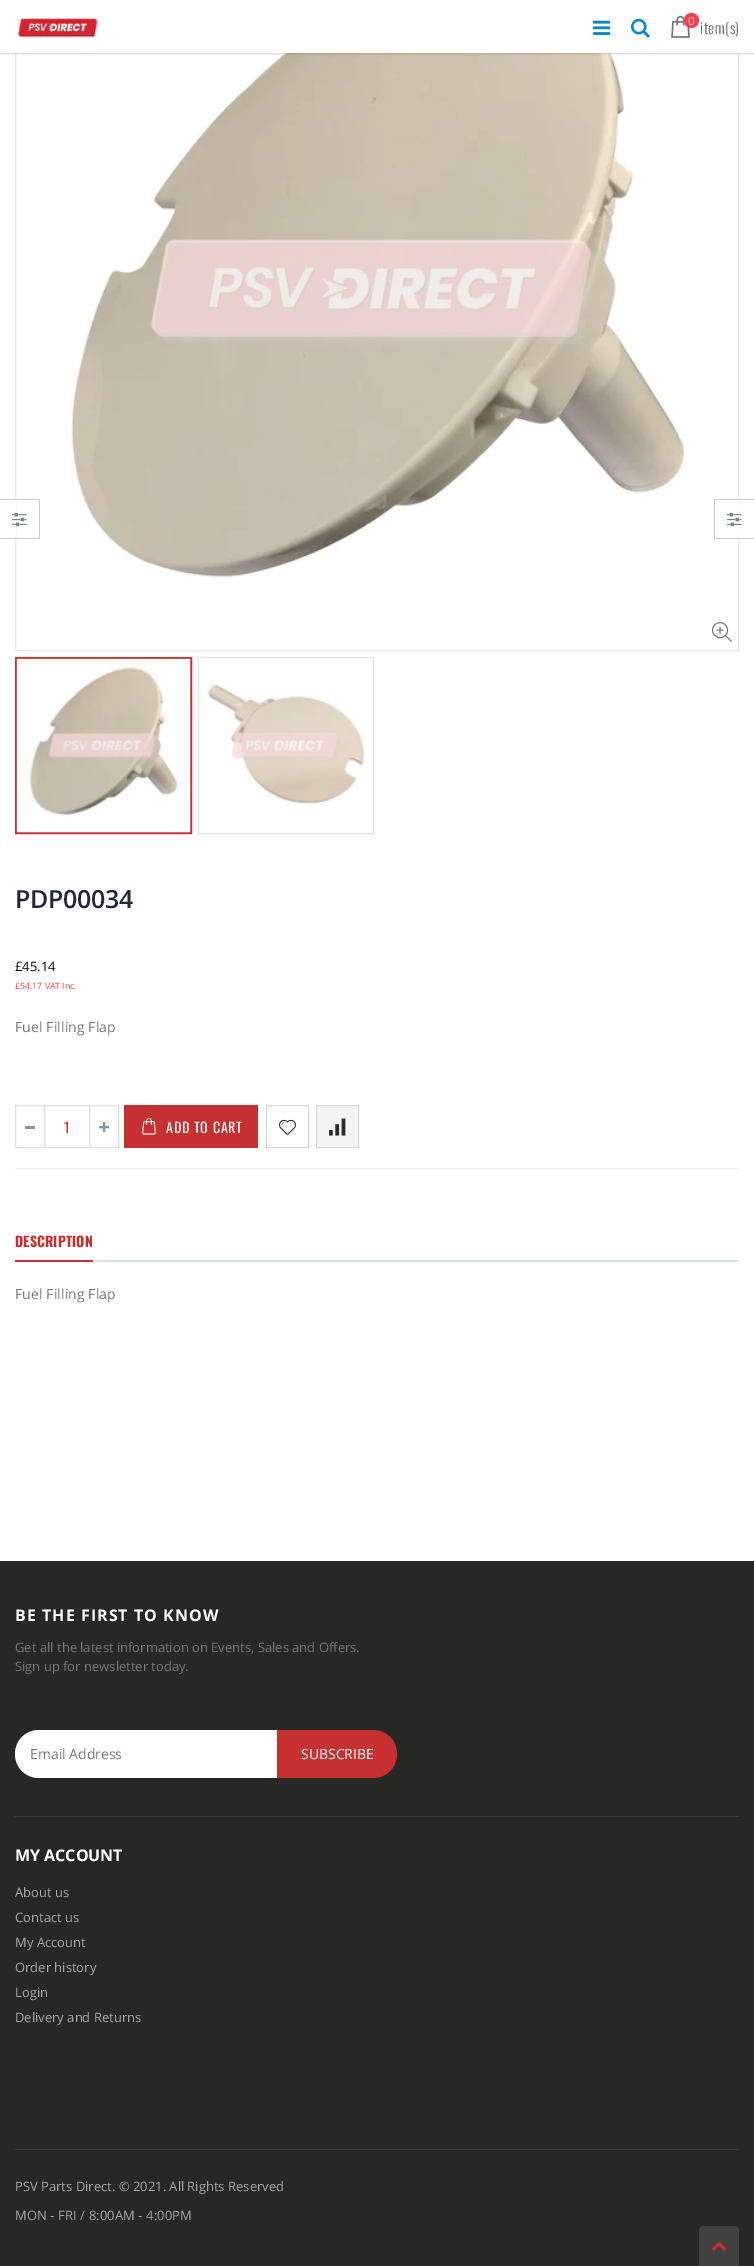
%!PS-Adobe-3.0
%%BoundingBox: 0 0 754 2266
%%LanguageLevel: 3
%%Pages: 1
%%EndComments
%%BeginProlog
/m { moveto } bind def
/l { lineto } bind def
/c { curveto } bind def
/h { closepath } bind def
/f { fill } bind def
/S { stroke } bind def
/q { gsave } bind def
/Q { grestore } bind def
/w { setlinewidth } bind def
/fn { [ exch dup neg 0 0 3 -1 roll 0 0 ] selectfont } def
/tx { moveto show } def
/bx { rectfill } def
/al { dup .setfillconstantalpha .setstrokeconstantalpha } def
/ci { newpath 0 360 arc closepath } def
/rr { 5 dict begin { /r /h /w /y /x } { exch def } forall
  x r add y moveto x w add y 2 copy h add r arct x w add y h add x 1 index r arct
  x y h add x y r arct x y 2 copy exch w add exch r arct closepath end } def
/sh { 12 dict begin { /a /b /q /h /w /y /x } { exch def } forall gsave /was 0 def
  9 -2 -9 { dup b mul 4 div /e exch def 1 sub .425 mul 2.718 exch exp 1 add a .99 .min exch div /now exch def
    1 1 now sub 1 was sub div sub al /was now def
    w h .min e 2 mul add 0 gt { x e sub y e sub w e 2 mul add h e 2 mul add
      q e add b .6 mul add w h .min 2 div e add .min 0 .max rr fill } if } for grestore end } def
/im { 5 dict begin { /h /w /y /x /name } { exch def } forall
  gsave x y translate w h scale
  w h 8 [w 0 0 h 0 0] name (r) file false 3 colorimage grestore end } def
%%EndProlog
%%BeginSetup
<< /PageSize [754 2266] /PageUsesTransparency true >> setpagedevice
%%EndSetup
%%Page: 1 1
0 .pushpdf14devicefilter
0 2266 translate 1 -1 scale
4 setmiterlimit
1 setgray
0 0 754 2266 bx
0.902 setgray
15.5 -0.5 723 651 rectstroke
(image5.raw) 69 53 618 525 im
0 setgray
0 0 754 53 0 1.5 0.3 sh
1 setgray
0 0 754 53 bx
(image0.raw) 17 18 81 20 im
(image1.raw) 593 20 18 15 im
(image2.raw) 631 18 19 20 im
(image3.raw) 671 15 19 23 im
1 0.251 0.322 setrgbcolor
691.5 20.5 7.5 ci f
/Poppins-Light 11 fn
1 setgray
(0) 688 25 tx
/Oswald-Light 15 fn
0.376 0.4 0.412 setrgbcolor
700 34 m 0.5 0 (item\(s\)) ashow
1 setgray
15 500 1 38 bx
0.8 setgray
0 499 40 1 bx
39 499 1 40 bx
0 538 40 1 bx
(image4.raw) 12 512 15 15 im
1 setgray
738 500 1 38 bx
0.8 setgray
714 499 40 1 bx
714 538 40 1 bx
714 499 1 40 bx
(image4.raw) 727 512 15 15 im
(image6.raw) 712 622 20 20 im
0.78 0.188 0.188 setrgbcolor
2 w
16 658 175 175 rectstroke
(image7.raw) 16 658 175 175 im
0.867 setgray
1 w
198.5 657.5 175 176 rectstroke
(image8.raw) 198 657 176 177 im
/OpenSans-SemiBold 25 fn
0.129 0.161 0.235 setrgbcolor
15 908 m -0.25 0 (PDP00034) ashow
/OpenSans-Regular 13 fn
0 setgray
(£45.14) 15 971 tx
/OpenSans-Regular 8.75 fn
0.929 0.286 0.286 setrgbcolor
(£54.17 VAT Inc.) 15 989 tx
/OpenSans-Regular 14 fn
0.467 setgray
15 1032 m 0.1 0 (Fuel Filling Flap) ashow
0.922 setgray
15 1168 724 1 bx
0.882 setgray
44.5 1105.5 45 42 rectstroke
0.855 0.886 0.902 setrgbcolor
15.5 1105.5 29 42 rectstroke
0.529 0.596 0.635 setrgbcolor
25 1126 10 3 bx
0.855 0.886 0.902 setrgbcolor
89.5 1105.5 29 42 rectstroke
(image9.raw) 99 1122 10 11 im
/Oswald-Regular 14 fn
0.78 0.188 0.188 setrgbcolor
(1) 64 1133 tx
124 1105 134 43 bx
(image10.raw) 142 1118 14 17 im
1 setgray
166 1133 m 0.75 0 (ADD TO CART) ashow
0.847 0.847 0.839 setrgbcolor
266.5 1105.5 42 42 rectstroke
(image11.raw) 279 1119 17 16 im
0.957 setgray
316.5 1105.5 m 358.5 1105.5 l 358.5 1147.5 l 316.5 1147.5 l h q f Q
0.847 0.847 0.839 setrgbcolor
S
(image12.raw) 329 1118 17 18 im
0.855 0.886 0.902 setrgbcolor
93 1260 646 2 bx
0.78 0.188 0.188 setrgbcolor
15 1260 78 2 bx
/Oswald-Bold 14 fn
15 1247 m 0.1 0 (DESCRIPTION) ashow
/OpenSans-Regular 14 fn
0.467 setgray
15 1299 m 0.1 0 (Fuel Filling Flap) ashow
0.153 0.153 0.137 setrgbcolor
0 1561 754 705 bx
0.239 0.239 0.22 setrgbcolor
15 1816 724 1 bx
/OpenSans-Bold 16 fn
1 setgray
15 1621 m 1.05 0 (BE THE FIRST TO KNOW) ashow
/OpenSans-Regular 13 fn
0.467 setgray
(Get all the latest information on Events, Sales and Offers.) 15 1652 tx
(Sign up for newsletter today.) 15 1671 tx
1 setgray
39 1730 m 375 1730 l 375 1778 l 39 1778 l 25.5 1778 15 1767.5 15 1754 c 15 1740.5 25.5 1730 39 1730 c h f
/OpenSans-Regular 14 fn
0.467 setgray
(Email Address) 30 1759 tx
0.78 0.188 0.188 setrgbcolor
277 1730 m 373 1730 l 386.5 1730 397 1740.5 397 1754 c 397 1767.5 386.5 1778 373 1778 c 277 1778 l h f
1 setgray
(SUBSCRIBE) 301 1759 tx
/OpenSans-Bold 16 fn
(MY ACCOUNT) 15 1861 tx
/OpenSans-Regular 13 fn
0.659 setgray
(About us) 15 1897 tx
(Contact us) 15 1922 tx
(My Account) 15 1947 tx
(Order history) 15 1972 tx
(Login) 15 1997 tx
(Delivery and Returns) 15 2022 tx
0.239 0.239 0.22 setrgbcolor
15 2149 724 1 bx
0.659 setgray
(PSV Parts Direct. © 2021. All Rights Reserved) 15 2191 tx
15 2220 m 0.1 0 (MON - FRI / 8:00AM - 4:00PM) ashow
0.251 setgray
704 2226 m 734 2226 l 737 2226 739 2228 739 2231 c 739 2266 l 699 2266 l 699 2231 l 699 2228 701 2226 704 2226 c h f
(image13.raw) 711 2241 16 10 im
.poppdf14devicefilter showpage
%%EOF
